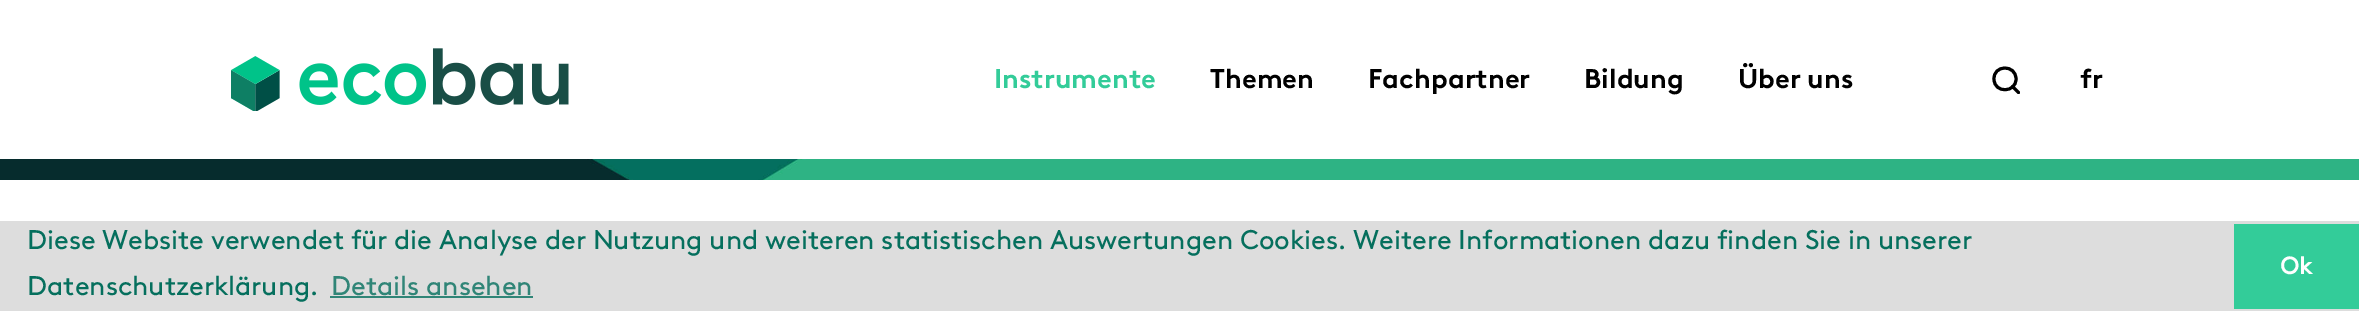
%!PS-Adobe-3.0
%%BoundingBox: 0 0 2359 311
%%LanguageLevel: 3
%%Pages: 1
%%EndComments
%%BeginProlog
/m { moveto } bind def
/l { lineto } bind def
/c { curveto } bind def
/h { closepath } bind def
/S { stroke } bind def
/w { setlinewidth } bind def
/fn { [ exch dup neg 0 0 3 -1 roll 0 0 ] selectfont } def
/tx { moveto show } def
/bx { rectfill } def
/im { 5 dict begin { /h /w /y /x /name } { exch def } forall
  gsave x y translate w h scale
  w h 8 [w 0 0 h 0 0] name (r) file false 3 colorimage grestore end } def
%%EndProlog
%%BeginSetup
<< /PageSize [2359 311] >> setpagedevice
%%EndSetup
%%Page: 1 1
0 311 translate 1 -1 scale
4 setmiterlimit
1 setgray
0 0 2359 311 bx
(image0.raw) 231 48 338 63 im
/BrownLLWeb-Bold 27 fn
0.2 0.8 0.6 setrgbcolor
(Instrumente) 994 88 tx
0 setgray
(Themen) 1210 88 tx
(Fachpartner) 1368 88 tx
(Bildung) 1584 88 tx
(Über uns) 1738 88 tx
3 w
1 setlinecap
1 setlinejoin
2016 79 m 2016 93 1994.5 93.5 1994 79.5 c 1993 64.5 2016 64 2016 79 c h 2018.5 92.5 m 2012.5 86.5 l S
(fr) 2080 88 tx
(image1.raw) 0 159 2359 21 im
0.867 setgray
0 221 2359 90 bx
/BrownLLWeb-Regular 27 fn
0.02 0.435 0.365 setrgbcolor
(Diese Website verwendet für die Analyse der Nutzung und weiteren statistischen Auswertungen Cookies. Weitere Informationen dazu finden Sie in unserer) 27 249 tx
(Datenschutzerklärung.) 27 295 tx
0.188 0.522 0.467 setrgbcolor
(Details ansehen) 331 295 tx
330 296 203 2 bx
0.2 0.8 0.6 setrgbcolor
2234 224 125 85 bx
/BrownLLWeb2-Bold 24 fn
1 setgray
(Ok) 2280 274 tx
showpage
%%EOF
